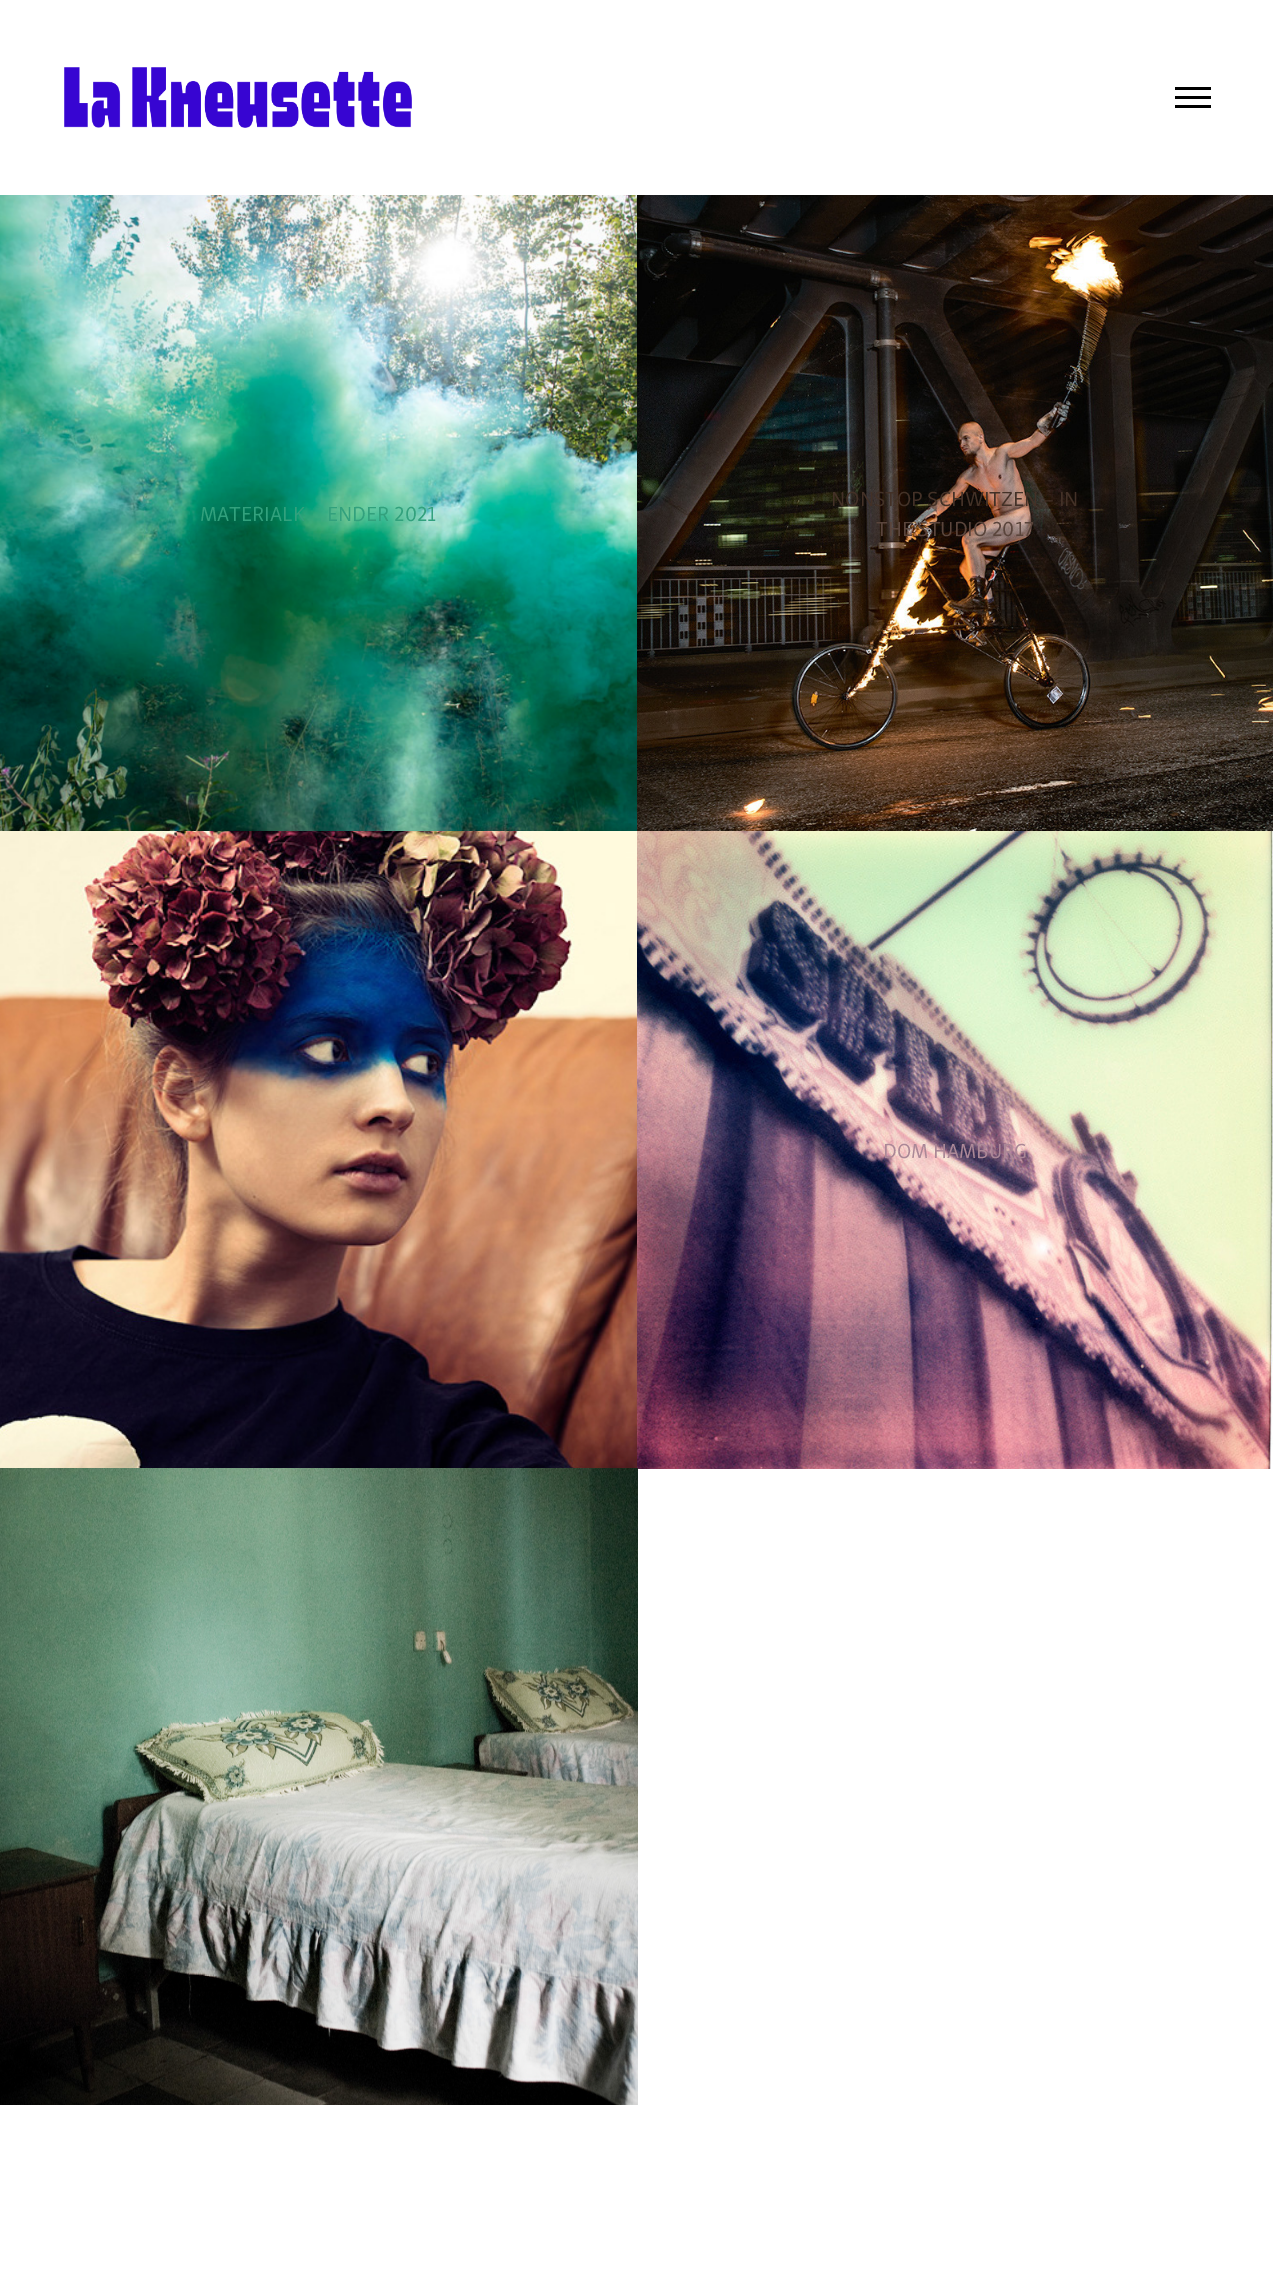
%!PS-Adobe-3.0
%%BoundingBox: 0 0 1273 2290
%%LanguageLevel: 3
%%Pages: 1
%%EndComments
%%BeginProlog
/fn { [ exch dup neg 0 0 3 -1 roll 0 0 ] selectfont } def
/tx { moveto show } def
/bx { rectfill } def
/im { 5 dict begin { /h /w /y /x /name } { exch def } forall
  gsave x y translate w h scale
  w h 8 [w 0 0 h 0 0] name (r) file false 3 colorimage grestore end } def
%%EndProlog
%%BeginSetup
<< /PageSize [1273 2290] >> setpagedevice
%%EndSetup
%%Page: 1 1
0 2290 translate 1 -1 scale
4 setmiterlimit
1 setgray
0 0 1273 2290 bx
(image0.raw) 64 67 348 61 im
0 setgray
1175 87 36 3 bx
1175 96 36 3 bx
1175 105 36 3 bx
(image1.raw) 0 195 637 636 im
/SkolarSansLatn-Regular 21 fn
0.196 0.631 0.49 setrgbcolor
(MATERIALK) 200 521 tx
(ENDER 2021) 327 521 tx
(image2.raw) 637 195 636 636 im
0.263 0.192 0.153 setrgbcolor
(NONSTOP SCHWITZEN – IN) 831 506 tx
0.353 0.271 0.235 setrgbcolor
(THE STUDIO 2017) 876 536 tx
(image3.raw) 0 831 637 637 im
(image4.raw) 637 831 636 638 im
0.671 0.533 0.592 setrgbcolor
(DOM HAMBURG) 883 1158 tx
(image5.raw) 0 1468 638 637 im
showpage
%%EOF
